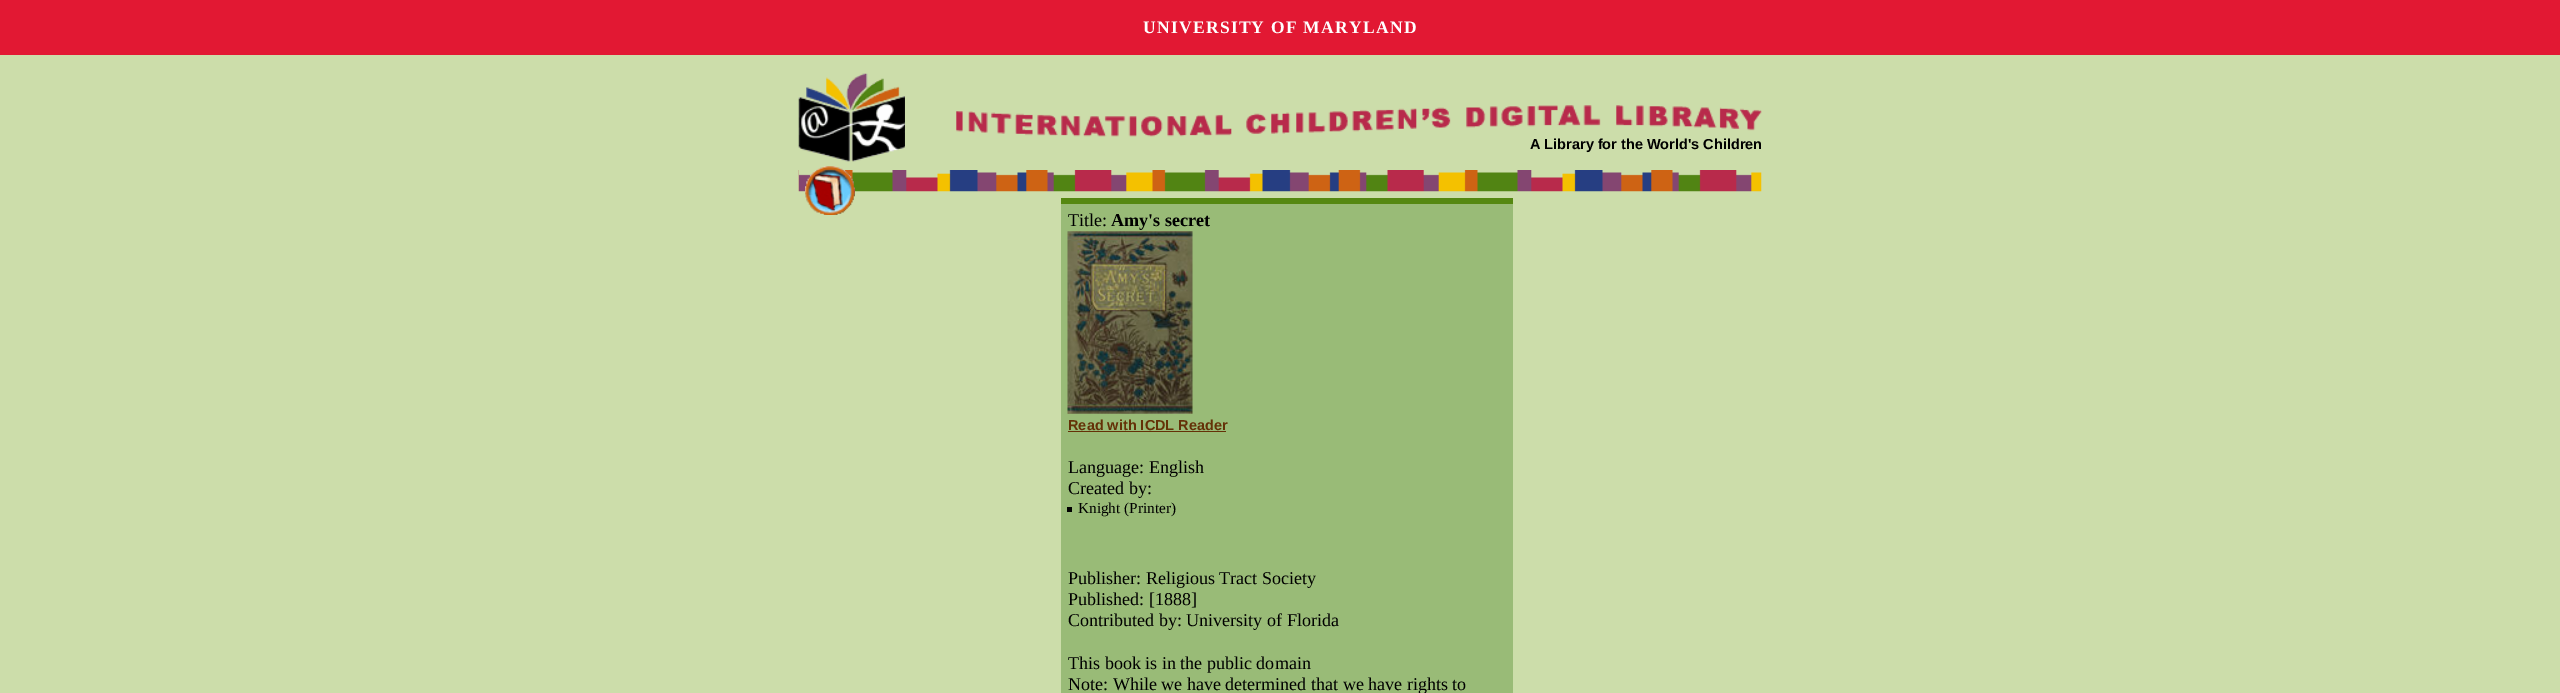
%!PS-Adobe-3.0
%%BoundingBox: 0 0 2560 693
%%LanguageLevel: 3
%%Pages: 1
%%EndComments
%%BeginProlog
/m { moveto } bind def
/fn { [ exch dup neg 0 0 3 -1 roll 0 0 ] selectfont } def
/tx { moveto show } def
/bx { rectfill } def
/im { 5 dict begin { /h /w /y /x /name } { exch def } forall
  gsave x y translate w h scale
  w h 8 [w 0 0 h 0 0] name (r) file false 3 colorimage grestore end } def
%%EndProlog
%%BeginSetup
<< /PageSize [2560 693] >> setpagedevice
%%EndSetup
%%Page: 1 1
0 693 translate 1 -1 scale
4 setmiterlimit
0.8 0.867 0.667 setrgbcolor
0 0 2560 693 bx
0.886 0.094 0.2 setrgbcolor
0 0 2560 55 bx
/LiberationSerif-Bold 17.5 fn
1 setgray
1143 33 m 1.25 0 (UNIVERSITY OF MARYLAND) ashow
(image0.raw) 798 73 107 89 im
(image1.raw) 956 105 806 32 im
/LiberationSans-Bold 14.5 fn
0 setgray
(A Library for the World's Children) 1530 149 tx
(image3.raw) 798 170 964 22 im
(image2.raw) 805 166 50 49 im
0.6 0.733 0.467 setrgbcolor
1061 204 452 489 bx
0.333 0.533 0.067 setrgbcolor
1061 198 452 6 bx
/LiberationSerif-Regular 18.05 fn
0 setgray
(Title:) 1068 226 tx
/LiberationSerif-Bold 18.05 fn
(Amy's secret) 1111 226 tx
(image4.raw) 1067 231 126 183 im
/LiberationSans-Bold 14.5 fn
0.392 0.192 0.027 setrgbcolor
(Read with ICDL Reader) 1068 430 tx
1068 431 158 1 bx
/LiberationSerif-Regular 18.05 fn
0 setgray
(Language: English) 1068 473 tx
(Created by:) 1068 494 tx
1067 507 5 5 bx
/LiberationSerif-Regular 15.25 fn
(Knight \(Printer\)) 1078 513 tx
/LiberationSerif-Regular 18.05 fn
(Publisher: Religious Tract Society) 1068 584 tx
(Published: [1888]) 1068 605 tx
(Contributed by: University of Florida) 1068 626 tx
(This book is in the public domain) 1068 669 tx
(Note: While we have determined that we have rights to) 1068 690 tx
showpage
%%EOF
